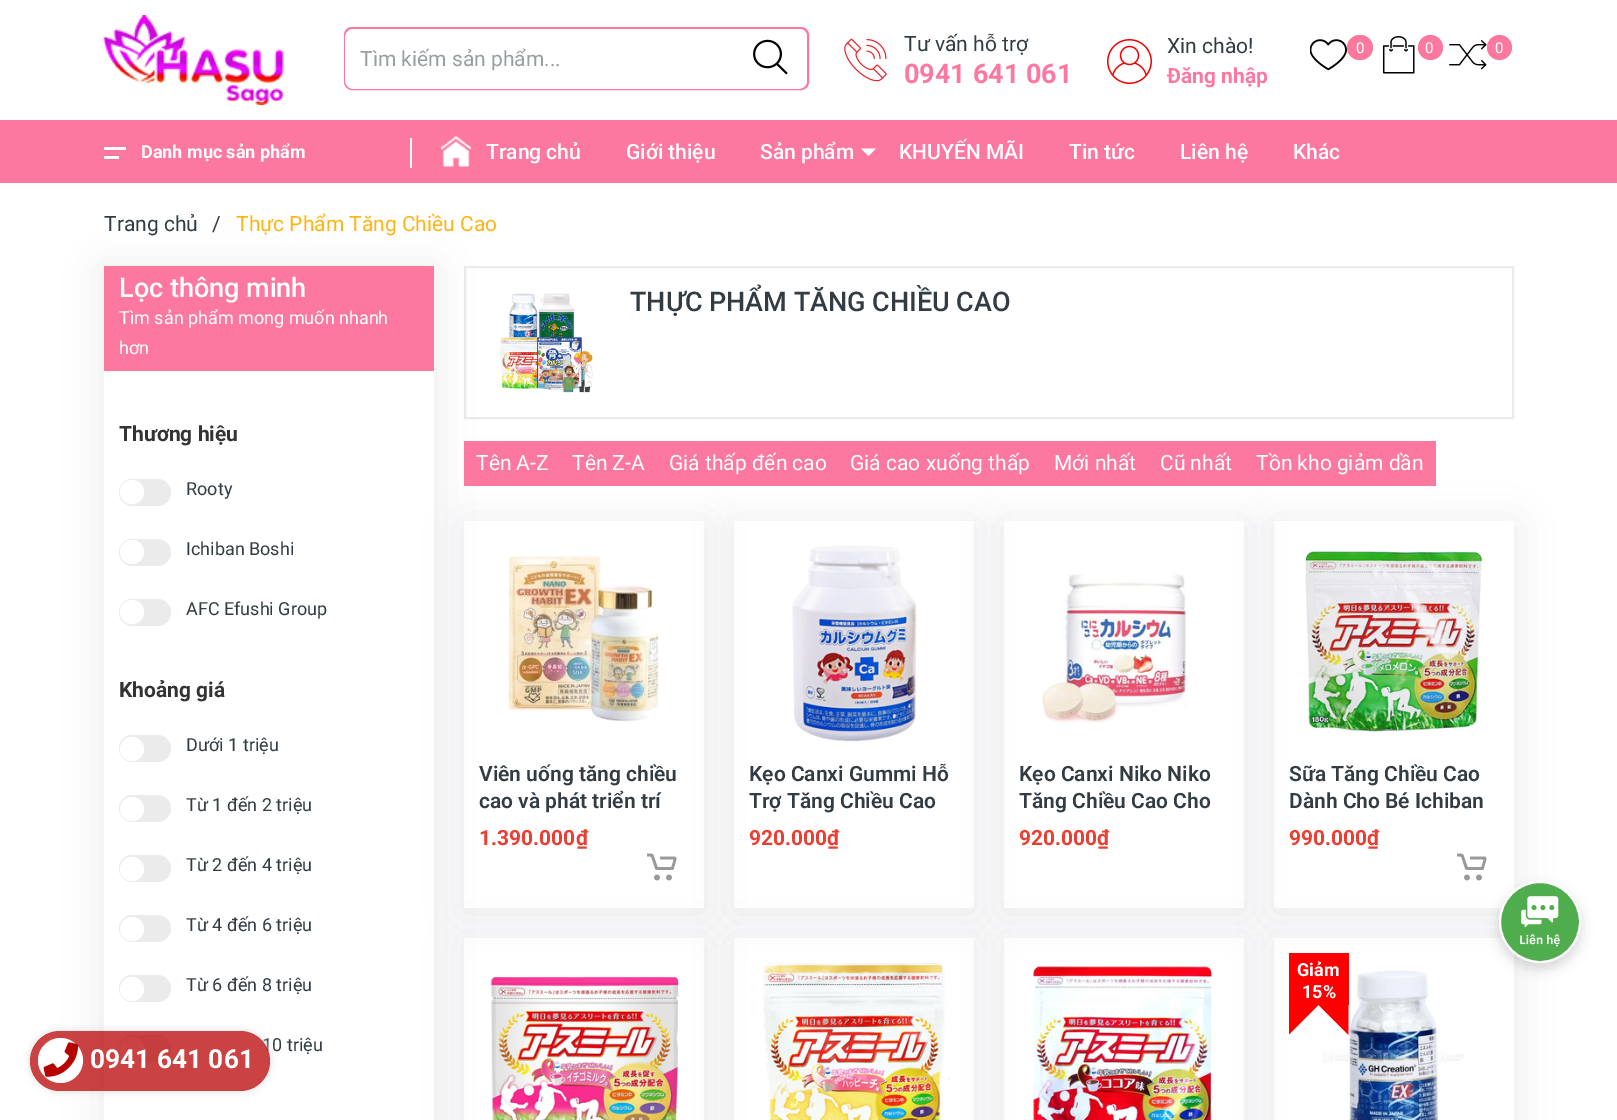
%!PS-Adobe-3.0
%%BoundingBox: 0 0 1617 1120
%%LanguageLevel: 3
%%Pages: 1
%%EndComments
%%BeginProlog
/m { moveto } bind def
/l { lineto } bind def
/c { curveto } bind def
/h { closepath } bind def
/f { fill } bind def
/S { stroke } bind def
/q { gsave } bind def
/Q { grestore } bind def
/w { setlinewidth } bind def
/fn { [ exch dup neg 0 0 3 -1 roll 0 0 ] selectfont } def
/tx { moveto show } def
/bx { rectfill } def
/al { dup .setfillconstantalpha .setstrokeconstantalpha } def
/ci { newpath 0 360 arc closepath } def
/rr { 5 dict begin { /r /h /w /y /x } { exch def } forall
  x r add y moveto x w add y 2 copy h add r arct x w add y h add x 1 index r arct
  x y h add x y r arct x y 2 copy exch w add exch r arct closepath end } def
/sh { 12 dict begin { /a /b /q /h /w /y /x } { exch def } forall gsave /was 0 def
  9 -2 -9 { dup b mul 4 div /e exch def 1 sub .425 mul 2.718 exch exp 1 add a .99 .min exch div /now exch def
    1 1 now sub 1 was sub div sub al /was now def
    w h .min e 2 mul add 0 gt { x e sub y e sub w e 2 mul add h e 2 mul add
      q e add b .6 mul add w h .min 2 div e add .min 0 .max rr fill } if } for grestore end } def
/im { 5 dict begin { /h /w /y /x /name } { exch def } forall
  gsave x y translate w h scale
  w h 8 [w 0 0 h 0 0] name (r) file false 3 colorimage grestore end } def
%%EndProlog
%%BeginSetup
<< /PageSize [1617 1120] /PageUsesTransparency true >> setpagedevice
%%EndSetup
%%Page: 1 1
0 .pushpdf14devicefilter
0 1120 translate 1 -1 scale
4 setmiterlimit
1 setgray
0 0 1617 1120 bx
(image0.raw) 103 15 181 90 im
0.992 0.471 0.624 setrgbcolor
2 w
345 28 463 61 7 rr S
1 setgray
345 29 462 60 9 rr f
/Roboto-Regular 21 fn
0.6 0.62 0.631 setrgbcolor
(Tìm kiếm sản phẩm...) 360 66 tx
(image1.raw) 753 39 35 36 im
(image2.raw) 844 38 43 44 im
0.196 0.235 0.259 setrgbcolor
(Tư vấn hỗ trợ) 904 51 tx
/Roboto-Bold 27 fn
0.992 0.471 0.624 setrgbcolor
(0941 641 061) 904 83 tx
(image3.raw) 1107 39 45 45 im
/Roboto-Regular 21 fn
0.196 0.235 0.259 setrgbcolor
(Xin chào!) 1167 53 tx
/Roboto-Bold 21 fn
0.992 0.471 0.624 setrgbcolor
(Đăng nhập) 1167 83 tx
(image4.raw) 1310 39 37 32 im
1347 35 26 25 12.5 rr f
/Roboto-Regular 15 fn
1 setgray
(0) 1356 53 tx
(image5.raw) 1382 36 33 38 im
0.992 0.471 0.624 setrgbcolor
1430.5 47.5 12.5 ci f
1 setgray
(0) 1425 53 tx
(image6.raw) 1449 40 38 30 im
0.992 0.471 0.624 setrgbcolor
1499.5 47.5 12.5 ci f
1 setgray
(0) 1495 53 tx
0.992 0.471 0.624 setrgbcolor
0 120 1617 63 bx
1 setgray
104 147 22 3 bx
/Roboto-Bold 18 fn
(Danh mục sản phẩm) 141 158 tx
104 156 15 3 bx
410 138 2 30 bx
(image7.raw) 441 136 30 31 im
/Roboto-Medium 21 fn
(Trang chủ) 486 159 tx
(Giới thiệu) 626 159 tx
(Sản phẩm) 760 159 tx
861 148.5 m 876 148.5 l 868.5 156 l h f
(KHUYẾN MÃI) 899 159 tx
(Tin tức) 1069 159 tx
(Liên hệ) 1180 159 tx
(Khác) 1293 159 tx
/Roboto-Regular 21 fn
0.196 0.235 0.259 setrgbcolor
(Trang chủ) 104 231 tx
(/) 212 231 tx
1 0.706 0.086 setrgbcolor
(Thực Phẩm Tăng Chiều Cao) 236 231 tx
0.922 setgray
465 267 1048 151 rectstroke
0.992 0.471 0.624 setrgbcolor
464 441 972 45 bx
q
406 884 m 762 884 l 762 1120 l 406 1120 l h 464 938 m 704 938 l 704 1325 l 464 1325 l h eoclip newpath
0.122 0.149 0.263 setrgbcolor
464 942 240 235 0 19 0.1 sh
Q
(image14.raw) 490 976 189 144 im
q
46 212 m 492 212 l 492 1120 l 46 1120 l h 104 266 m 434 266 l 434 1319 l 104 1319 l h eoclip newpath
0.122 0.149 0.263 setrgbcolor
104 270 330 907 0 19 0.1 sh
Q
104 266 330 105 bx
/Roboto-Medium 27 fn
1 setgray
(Lọc thông minh) 119 297 tx
/Roboto-Regular 18 fn
(Tìm sản phẩm mong muốn nhanh) 119 324 tx
(hơn) 119 354 tx
/Roboto-Bold 21 fn
0.2 setgray
(Thương hiệu) 119 441 tx
0.922 setgray
119 479 52 27 13.5 rr f
1 setgray
132 492 12 ci f
/Roboto-Regular 18 fn
0.196 0.235 0.259 setrgbcolor
(Rooty) 186 495 tx
0.922 setgray
119 539 52 27 13.5 rr f
1 setgray
132 552 12 ci f
0.196 0.235 0.259 setrgbcolor
(Ichiban Boshi) 186 555 tx
0.922 setgray
119 599 52 27 13.5 rr f
1 setgray
132 612 12 ci f
0.196 0.235 0.259 setrgbcolor
(AFC Efushi Group) 186 615 tx
/Roboto-Bold 21 fn
0.2 setgray
(Khoảng giá) 119 697 tx
0.922 setgray
119 735 52 27 13.5 rr f
1 setgray
132 749 12 ci f
/Roboto-Regular 18 fn
0.196 0.235 0.259 setrgbcolor
(Dưới 1 triệu) 186 751 tx
0.922 setgray
119 795 52 27 13.5 rr f
1 setgray
132 809 12 ci f
0.196 0.235 0.259 setrgbcolor
(Từ 1 đến 2 triệu) 186 811 tx
0.922 setgray
119 855 52 27 13.5 rr f
1 setgray
132 869 12 ci f
0.196 0.235 0.259 setrgbcolor
(Từ 2 đến 4 triệu) 186 871 tx
0.922 setgray
119 915 52 27 13.5 rr f
1 setgray
132 929 12 ci f
0.196 0.235 0.259 setrgbcolor
(Từ 4 đến 6 triệu) 186 931 tx
0.922 setgray
119 975 52 27 13.5 rr f
1 setgray
132 989 12 ci f
0.196 0.235 0.259 setrgbcolor
(Từ 6 đến 8 triệu) 186 991 tx
0.922 setgray
119 1035 52 27 13.5 rr f
1 setgray
132 1049 12 ci f
0.196 0.235 0.259 setrgbcolor
(10 triệu) 262 1051 tx
(image8.raw) 500 293 93 100 im
/Roboto-Medium 27 fn
(THỰC PHẨM TĂNG CHIỀU CAO) 630 311 tx
/Roboto-Regular 21 fn
1 setgray
(Tên A-Z) 476 470 tx
(Tên Z-A) 572 470 tx
(Giá thấp đến cao) 669 470 tx
(Giá cao xuống thấp) 850 470 tx
(Mới nhất) 1054 470 tx
(Cũ nhất) 1160 470 tx
(Tồn kho giảm dần) 1256 470 tx
q
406 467 m 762 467 l 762 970 l 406 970 l h 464 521 m 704 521 l 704 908 l 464 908 l h eoclip newpath
0.122 0.149 0.263 setrgbcolor
464 525 240 387 0 19 0.1 sh
Q
(image9.raw) 507 555 153 167 im
/Roboto-SemiBold 21 fn
0.196 0.235 0.259 setrgbcolor
(Viên uống tăng chiều) 479 781 tx
(cao và phát triển trí) 479 808 tx
/Roboto-Bold 21 fn
0.922 0.243 0.196 setrgbcolor
(1.390.000₫) 479 845 tx
(image10.raw) 647 853 30 28 im
q
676 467 m 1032 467 l 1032 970 l 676 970 l h 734 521 m 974 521 l 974 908 l 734 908 l h eoclip newpath
0.122 0.149 0.263 setrgbcolor
734 525 240 387 0 19 0.1 sh
Q
(image11.raw) 792 545 125 197 im
/Roboto-SemiBold 21 fn
0.196 0.235 0.259 setrgbcolor
(Kẹo Canxi Gummi Hỗ) 749 781 tx
(Trợ Tăng Chiều Cao) 749 808 tx
/Roboto-Bold 21 fn
0.922 0.243 0.196 setrgbcolor
(920.000₫) 749 845 tx
q
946 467 m 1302 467 l 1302 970 l 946 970 l h 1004 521 m 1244 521 l 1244 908 l 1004 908 l h eoclip newpath
0.122 0.149 0.263 setrgbcolor
1004 525 240 387 0 19 0.1 sh
Q
(image12.raw) 1041 574 146 149 im
/Roboto-SemiBold 21 fn
0.196 0.235 0.259 setrgbcolor
(Kẹo Canxi Niko Niko) 1019 781 tx
(Tăng Chiều Cao Cho) 1019 808 tx
/Roboto-Bold 21 fn
0.922 0.243 0.196 setrgbcolor
(920.000₫) 1019 845 tx
q
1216 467 m 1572 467 l 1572 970 l 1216 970 l h 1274 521 m 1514 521 l 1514 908 l 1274 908 l h eoclip newpath
0.122 0.149 0.263 setrgbcolor
1274 525 240 387 0 19 0.1 sh
Q
(image13.raw) 1305 551 179 182 im
/Roboto-SemiBold 21 fn
0.196 0.235 0.259 setrgbcolor
(Sữa Tăng Chiều Cao) 1289 781 tx
(Dành Cho Bé Ichiban) 1289 808 tx
/Roboto-Bold 21 fn
0.922 0.243 0.196 setrgbcolor
(990.000₫) 1289 845 tx
(image10.raw) 1457 853 30 28 im
q
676 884 m 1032 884 l 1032 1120 l 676 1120 l h 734 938 m 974 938 l 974 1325 l 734 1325 l h eoclip newpath
0.122 0.149 0.263 setrgbcolor
734 942 240 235 0 19 0.1 sh
Q
(image15.raw) 762 962 188 158 im
q
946 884 m 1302 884 l 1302 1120 l 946 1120 l h 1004 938 m 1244 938 l 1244 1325 l 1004 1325 l h eoclip newpath
0.122 0.149 0.263 setrgbcolor
1004 942 240 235 0 19 0.1 sh
Q
(image16.raw) 1033 966 179 154 im
q
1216 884 m 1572 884 l 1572 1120 l 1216 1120 l h 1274 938 m 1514 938 l 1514 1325 l 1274 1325 l h eoclip newpath
0.122 0.149 0.263 setrgbcolor
1274 942 240 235 0 19 0.1 sh
Q
(image17.raw) 1322 970 143 150 im
1 0 0 setrgbcolor
1289 953 60 52 bx
/Roboto-Bold 18 fn
1 setgray
(Giảm) 1297 976 tx
(15%) 1302 998 tx
q
1289 953 210 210 rectclip
1 0 0 setrgbcolor
1288.5 1005 m 1318.5 1005 l 1288.5 1035 l h f
Q
1 0 0 setrgbcolor
1348.5 1005 m 1348.5 1035 l 1318.5 1005 l h f
0 setgray
1499 887 82 82 41 6 0.15 sh
0.314 0.678 0.306 setrgbcolor
1540 922 40 ci q f Q
1 setgray
S
(image18.raw) 1520 896 40 51 im
q
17 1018 m 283 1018 l 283 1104 l 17 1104 l h 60 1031 m 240 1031 l 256.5 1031 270 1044.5 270 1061 c 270 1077.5 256.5 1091 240 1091 c 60 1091 l 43.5 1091 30 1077.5 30 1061 c 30 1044.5 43.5 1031 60 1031 c h eoclip newpath
0.867 setgray
30 1031 240 60 30 4 1 sh
Q
0.74 al
0.718 0.004 0 setrgbcolor
30 1031 240 60 30 rr f
1 al
1 setgray
60.5 1060.5 22.5 ci f
(image19.raw) 43 1042 35 35 im
/Roboto-Bold 26.25 fn
(0941 641 061) 90 1068 tx
.poppdf14devicefilter showpage
%%EOF
